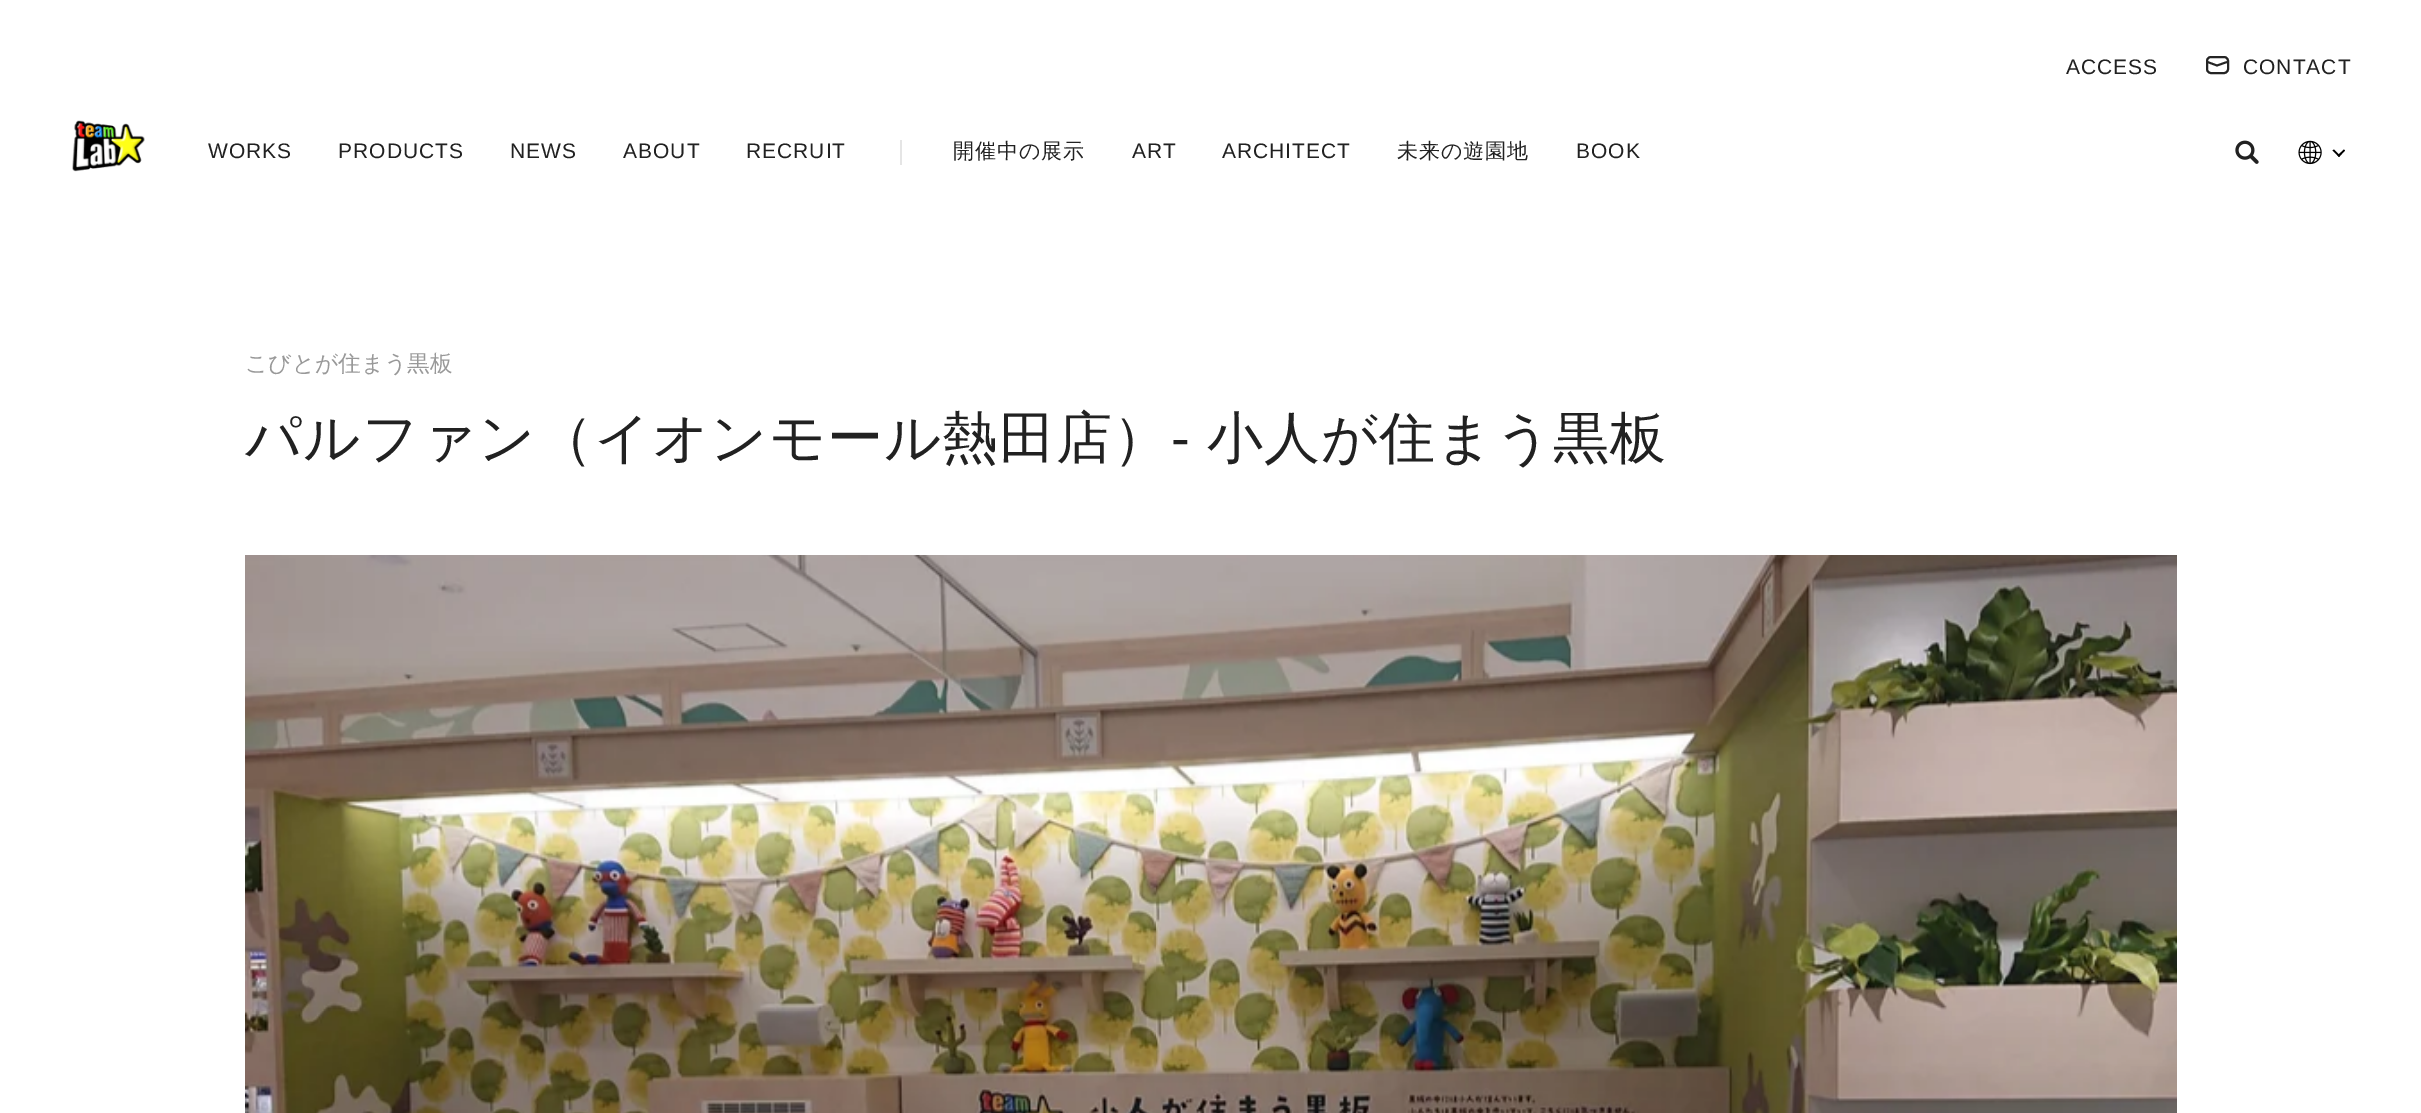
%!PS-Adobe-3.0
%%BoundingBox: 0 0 2421 1113
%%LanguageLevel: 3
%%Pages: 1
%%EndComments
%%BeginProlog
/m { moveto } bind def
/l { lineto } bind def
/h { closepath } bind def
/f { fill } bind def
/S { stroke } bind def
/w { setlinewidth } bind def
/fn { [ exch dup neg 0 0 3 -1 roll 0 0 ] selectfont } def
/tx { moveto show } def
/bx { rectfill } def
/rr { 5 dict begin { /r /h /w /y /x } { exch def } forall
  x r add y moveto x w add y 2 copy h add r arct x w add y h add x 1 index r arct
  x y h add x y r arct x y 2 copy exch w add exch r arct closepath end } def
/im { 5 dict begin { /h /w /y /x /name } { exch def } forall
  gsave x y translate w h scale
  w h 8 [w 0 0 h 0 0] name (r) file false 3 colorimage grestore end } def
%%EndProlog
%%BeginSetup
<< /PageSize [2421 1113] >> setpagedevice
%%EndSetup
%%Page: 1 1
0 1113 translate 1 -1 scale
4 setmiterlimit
1 setgray
0 0 2421 1113 bx
/LiberationSans-Regular 21 fn
0.129 setgray
2066 74 m 1 0 (ACCESS) ashow
0.141 setgray
2 w
2207 57 21 16 4 rr S
0.129 setgray
2243 74 m 1 0 (CONTACT) ashow
0.141 setgray
1.9 w
2207.5 62 m 2217 65.5 l 2227 62 l S
(image0.raw) 72 120 73 52 im
0.129 setgray
208 158 m 1 0 (WORKS) ashow
338 158 m 1 0 (PRODUCTS) ashow
510 158 m 1 0 (NEWS) ashow
623 158 m 1 0 (ABOUT) ashow
746 158 m 1 0 (RECRUIT) ashow
0.898 setgray
900 140 2 25 bx
/WenQuanYiZenHei-Medium 21 fn
0.129 setgray
953 158 m 1 0 (開催中の展示) ashow
/LiberationSans-Regular 21 fn
1132 158 m 1 0 (ART) ashow
1222 158 m 1 0 (ARCHITECT) ashow
/WenQuanYiZenHei-Medium 21 fn
1397 158 m 1 0 (未来の遊園地) ashow
/LiberationSans-Regular 21 fn
1576 158 m 1 0 (BOOK) ashow
(image1.raw) 2235 140 24 24 im
(image2.raw) 2298 140 24 25 im
0 setgray
2344 149.5 m 2345 150.5 l 2339 157 l 2337.5 155.5 l h f
2334 149.5 m 2340 155.5 l 2339 157 l 2332.5 150.5 l h f
/WenQuanYiZenHei-Medium 22.75 fn
0.6 setgray
(こびとが住まう黒板) 245 371 tx
/WenQuanYiZenHei-Medium 56 fn
0.129 setgray
245 457 m 1 0 (パルファン（イオンモール熱田店）) ashow
/LiberationSans-Regular 56 fn
1171 457 m 1 0 (-) ashow
/WenQuanYiZenHei-Medium 56 fn
1207 457 m 1 0 (小人が住まう黒板) ashow
(image3.raw) 245 555 1932 558 im
showpage
%%EOF
